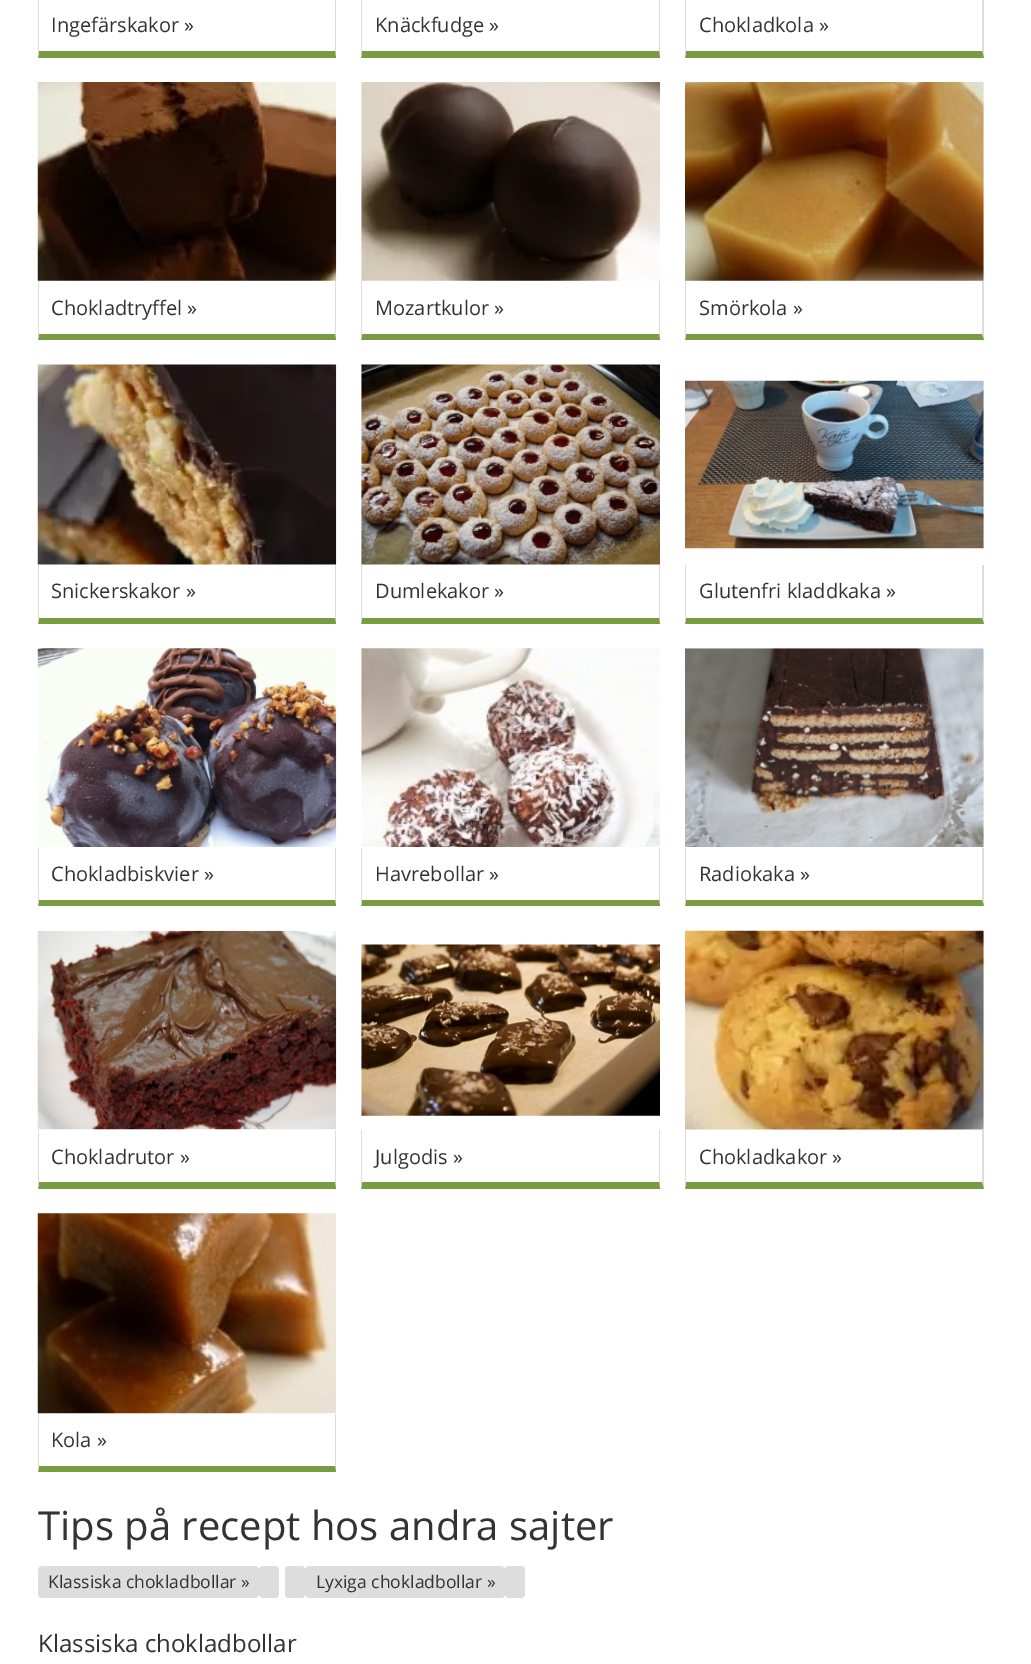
%!PS-Adobe-3.0
%%BoundingBox: 0 0 1031 1664
%%LanguageLevel: 3
%%Pages: 1
%%EndComments
%%BeginProlog
/m { moveto } bind def
/l { lineto } bind def
/c { curveto } bind def
/h { closepath } bind def
/f { fill } bind def
/fn { [ exch dup neg 0 0 3 -1 roll 0 0 ] selectfont } def
/tx { moveto show } def
/bx { rectfill } def
/rr { 5 dict begin { /r /h /w /y /x } { exch def } forall
  x r add y moveto x w add y 2 copy h add r arct x w add y h add x 1 index r arct
  x y h add x y r arct x y 2 copy exch w add exch r arct closepath end } def
/im { 5 dict begin { /h /w /y /x /name } { exch def } forall
  gsave x y translate w h scale
  w h 8 [w 0 0 h 0 0] name (r) file false 3 colorimage grestore end } def
%%EndProlog
%%BeginSetup
<< /PageSize [1031 1664] >> setpagedevice
%%EndSetup
%%Page: 1 1
0 1664 translate 1 -1 scale
4 setmiterlimit
1 setgray
0 0 1031 1664 bx
0.867 setgray
336 -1 m 336 58 l 335 51 l 335 -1 l h f
0.475 0.608 0.259 setrgbcolor
336 58 m 38 58 l 39 51 l 335 51 l h f
0.867 setgray
38 58 m 38 -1 l 39 -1 l 39 51 l h f
/OpenSans-Regular 20 fn
0.2 setgray
(Ingefärskakor ») 51 32 tx
0.867 setgray
660 -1 m 660 58 l 659 51 l 659 -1 l h f
0.475 0.608 0.259 setrgbcolor
660 58 m 361 58 l 362 51 l 659 51 l h f
0.867 setgray
361 58 m 361 -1 l 362 -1 l 362 51 l h f
0.2 setgray
(Knäckfudge ») 375 32 tx
0.867 setgray
984 -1 m 984 58 l 982 51 l 982 -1 l h f
0.475 0.608 0.259 setrgbcolor
984 58 m 685 58 l 686 51 l 982 51 l h f
0.867 setgray
685 58 m 685 -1 l 686 -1 l 686 51 l h f
0.2 setgray
(Chokladkola ») 699 32 tx
(image0.raw) 37 82 300 199 im
0.867 setgray
336 281 m 336 340 l 335 334 l 335 281 l h f
0.475 0.608 0.259 setrgbcolor
336 340 m 38 340 l 39 334 l 335 334 l h f
0.867 setgray
38 340 m 38 281 l 39 281 l 39 334 l h f
0.2 setgray
(Chokladtryffel ») 51 315 tx
(image1.raw) 361 82 299 199 im
0.867 setgray
660 281 m 660 340 l 659 334 l 659 281 l h f
0.475 0.608 0.259 setrgbcolor
660 340 m 361 340 l 362 334 l 659 334 l h f
0.867 setgray
361 340 m 361 281 l 362 281 l 362 334 l h f
0.2 setgray
(Mozartkulor ») 375 315 tx
(image2.raw) 685 82 299 199 im
0.867 setgray
984 281 m 984 340 l 982 334 l 982 281 l h f
0.475 0.608 0.259 setrgbcolor
984 340 m 685 340 l 686 334 l 982 334 l h f
0.867 setgray
685 340 m 685 281 l 686 281 l 686 334 l h f
0.2 setgray
(Smörkola ») 699 315 tx
(image3.raw) 37 364 300 201 im
0.867 setgray
336 565 m 336 624 l 335 618 l 335 565 l h f
0.475 0.608 0.259 setrgbcolor
336 624 m 38 624 l 39 618 l 335 618 l h f
0.867 setgray
38 624 m 38 565 l 39 565 l 39 618 l h f
0.2 setgray
(Snickerskakor ») 51 598 tx
(image4.raw) 361 364 299 201 im
0.867 setgray
660 565 m 660 624 l 659 618 l 659 565 l h f
0.475 0.608 0.259 setrgbcolor
660 624 m 361 624 l 362 618 l 659 618 l h f
0.867 setgray
361 624 m 361 565 l 362 565 l 362 618 l h f
0.2 setgray
(Dumlekakor ») 375 598 tx
(image5.raw) 685 380 299 169 im
0.867 setgray
984 565 m 984 624 l 982 618 l 982 565 l h f
0.475 0.608 0.259 setrgbcolor
984 624 m 685 624 l 686 618 l 982 618 l h f
0.867 setgray
685 624 m 685 565 l 686 565 l 686 618 l h f
0.2 setgray
(Glutenfri kladdkaka ») 699 598 tx
(image6.raw) 37 648 300 199 im
0.867 setgray
336 848 m 336 906 l 335 900 l 335 848 l h f
0.475 0.608 0.259 setrgbcolor
336 906 m 38 906 l 39 900 l 335 900 l h f
0.867 setgray
38 906 m 38 848 l 39 848 l 39 900 l h f
0.2 setgray
(Chokladbiskvier ») 51 881 tx
(image7.raw) 361 648 299 199 im
0.867 setgray
660 848 m 660 906 l 659 900 l 659 848 l h f
0.475 0.608 0.259 setrgbcolor
660 906 m 361 906 l 362 900 l 659 900 l h f
0.867 setgray
361 906 m 361 848 l 362 848 l 362 900 l h f
0.2 setgray
(Havrebollar ») 375 881 tx
(image8.raw) 685 648 299 199 im
0.867 setgray
984 848 m 984 906 l 982 900 l 982 848 l h f
0.475 0.608 0.259 setrgbcolor
984 906 m 685 906 l 686 900 l 982 900 l h f
0.867 setgray
685 906 m 685 848 l 686 848 l 686 900 l h f
0.2 setgray
(Radiokaka ») 699 881 tx
(image9.raw) 37 930 300 200 im
0.867 setgray
336 1130 m 336 1189 l 335 1182 l 335 1130 l h f
0.475 0.608 0.259 setrgbcolor
336 1189 m 38 1189 l 39 1182 l 335 1182 l h f
0.867 setgray
38 1189 m 38 1130 l 39 1130 l 39 1182 l h f
0.2 setgray
(Chokladrutor ») 51 1164 tx
(image10.raw) 361 944 299 172 im
0.867 setgray
660 1130 m 660 1189 l 659 1182 l 659 1130 l h f
0.475 0.608 0.259 setrgbcolor
660 1189 m 361 1189 l 362 1182 l 659 1182 l h f
0.867 setgray
361 1189 m 361 1130 l 362 1130 l 362 1182 l h f
0.2 setgray
(Julgodis ») 375 1164 tx
(image11.raw) 685 930 299 200 im
0.867 setgray
984 1130 m 984 1189 l 982 1182 l 982 1130 l h f
0.475 0.608 0.259 setrgbcolor
984 1189 m 685 1189 l 686 1182 l 982 1182 l h f
0.867 setgray
685 1189 m 685 1130 l 686 1130 l 686 1182 l h f
0.2 setgray
(Chokladkakor ») 699 1164 tx
(image12.raw) 37 1213 299 201 im
0.867 setgray
336 1414 m 336 1472 l 335 1466 l 335 1414 l h f
0.475 0.608 0.259 setrgbcolor
336 1472 m 38 1472 l 39 1466 l 335 1466 l h f
0.867 setgray
38 1472 m 38 1414 l 39 1414 l 39 1466 l h f
0.2 setgray
(Kola ») 51 1447 tx
/OpenSans-Regular 40 fn
(Tips på recept hos andra sajter) 38 1540 tx
0.867 setgray
42 1566 m 241 1566 l 241 1598 l 42 1598 l 40 1598 38 1596 38 1594 c 38 1570 l 38 1568 40 1566 42 1566 c h f
241 1566 m 255 1566 l 257 1566 259 1568 259 1570 c 259 1594 l 259 1596 257 1598 255 1598 c 241 1598 l h f
/OpenSans-Regular 17.5 fn
0.2 setgray
(Klassiska chokladbollar ») 48 1588 tx
0.867 setgray
259 1566 20 32 4 rr f
285 1566 20 32 4 rr f
309 1566 m 486 1566 l 486 1598 l 309 1598 l 307 1598 305 1596 305 1594 c 305 1570 l 305 1568 307 1566 309 1566 c h f
486 1566 m 501 1566 l 503 1566 505 1568 505 1570 c 505 1594 l 505 1596 503 1598 501 1598 c 486 1598 l h f
0.2 setgray
(Lyxiga chokladbollar ») 316 1588 tx
0.867 setgray
505 1566 20 32 4 rr f
/OpenSans-Regular 24 fn
0.2 setgray
(Klassiska chokladbollar) 38 1652 tx
showpage
%%EOF
